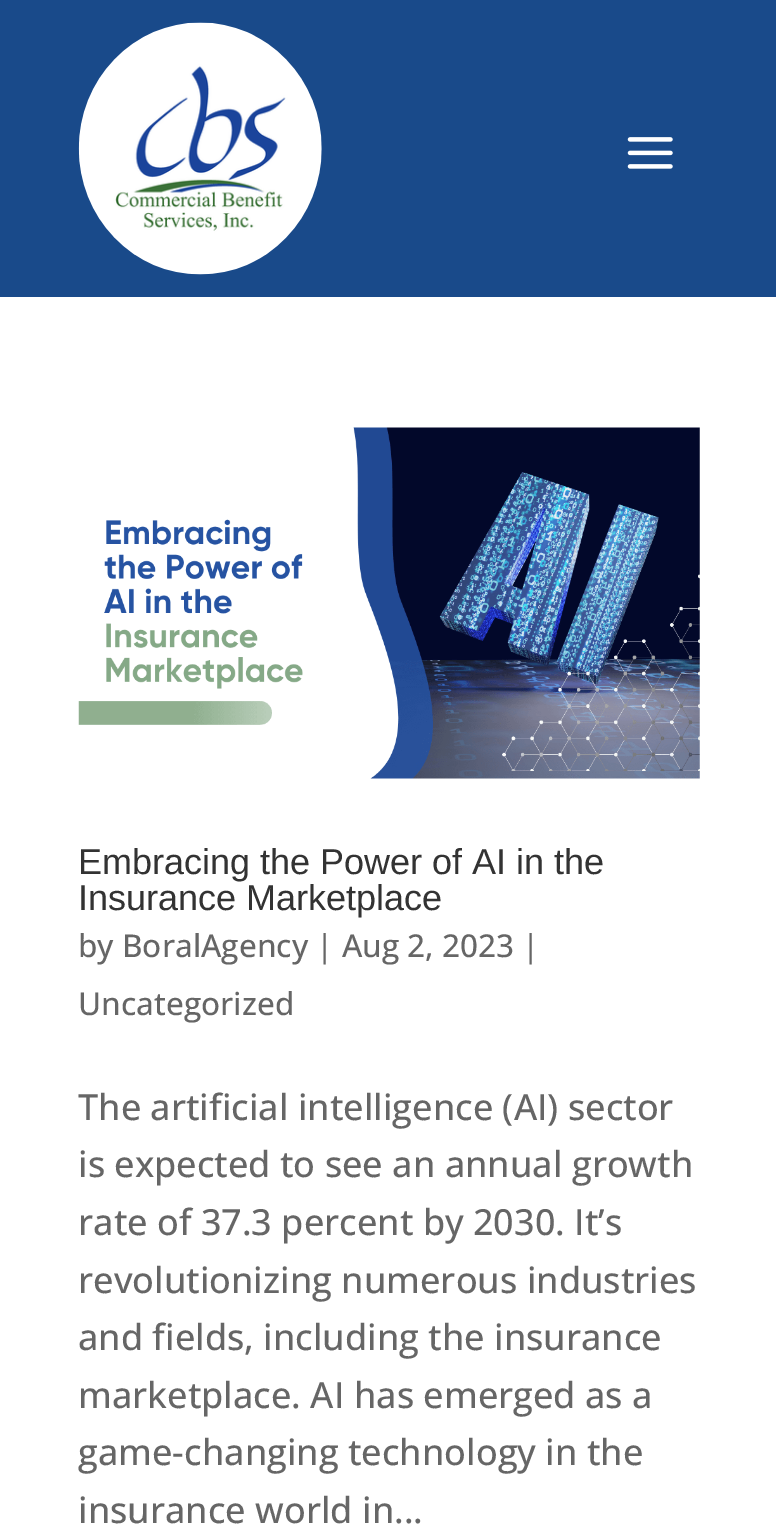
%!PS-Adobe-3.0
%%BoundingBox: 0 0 776 1526
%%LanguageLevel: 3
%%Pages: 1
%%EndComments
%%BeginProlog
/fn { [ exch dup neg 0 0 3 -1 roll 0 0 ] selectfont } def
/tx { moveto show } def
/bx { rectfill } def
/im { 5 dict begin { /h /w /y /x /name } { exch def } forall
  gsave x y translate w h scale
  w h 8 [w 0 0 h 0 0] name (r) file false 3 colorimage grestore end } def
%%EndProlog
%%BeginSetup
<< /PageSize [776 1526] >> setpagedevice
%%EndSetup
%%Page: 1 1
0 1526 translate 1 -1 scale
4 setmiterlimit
1 setgray
0 0 776 1526 bx
0.098 0.29 0.541 setrgbcolor
0 0 776 297 bx
(image0.raw) 78 22 244 253 im
(image1.raw) 627 137 46 32 im
(image2.raw) 78 427 622 352 im
/LiberationSans-Regular 36 fn
0.2 setgray
(Embracing the Power of AI in the) 78 874 tx
(Insurance Marketplace) 78 910 tx
/OpenSans-Medium 31.5 fn
0.4 setgray
(by BoralAgency | Aug 2, 2023 |) 78 957 tx
(Uncategorized) 78 1015 tx
/OpenSans-Medium 36 fn
(The artificial intelligence \(AI\) sector) 78 1120 tx
(is expected to see an annual growth) 78 1177 tx
(rate of 37.3 percent by 2030. It’s) 78 1235 tx
(revolutionizing numerous industries) 78 1293 tx
(and fields, including the insurance) 78 1350 tx
(marketplace. AI has emerged as a) 78 1408 tx
(game-changing technology in the) 78 1465 tx
(insurance world in...) 78 1523 tx
showpage
%%EOF
